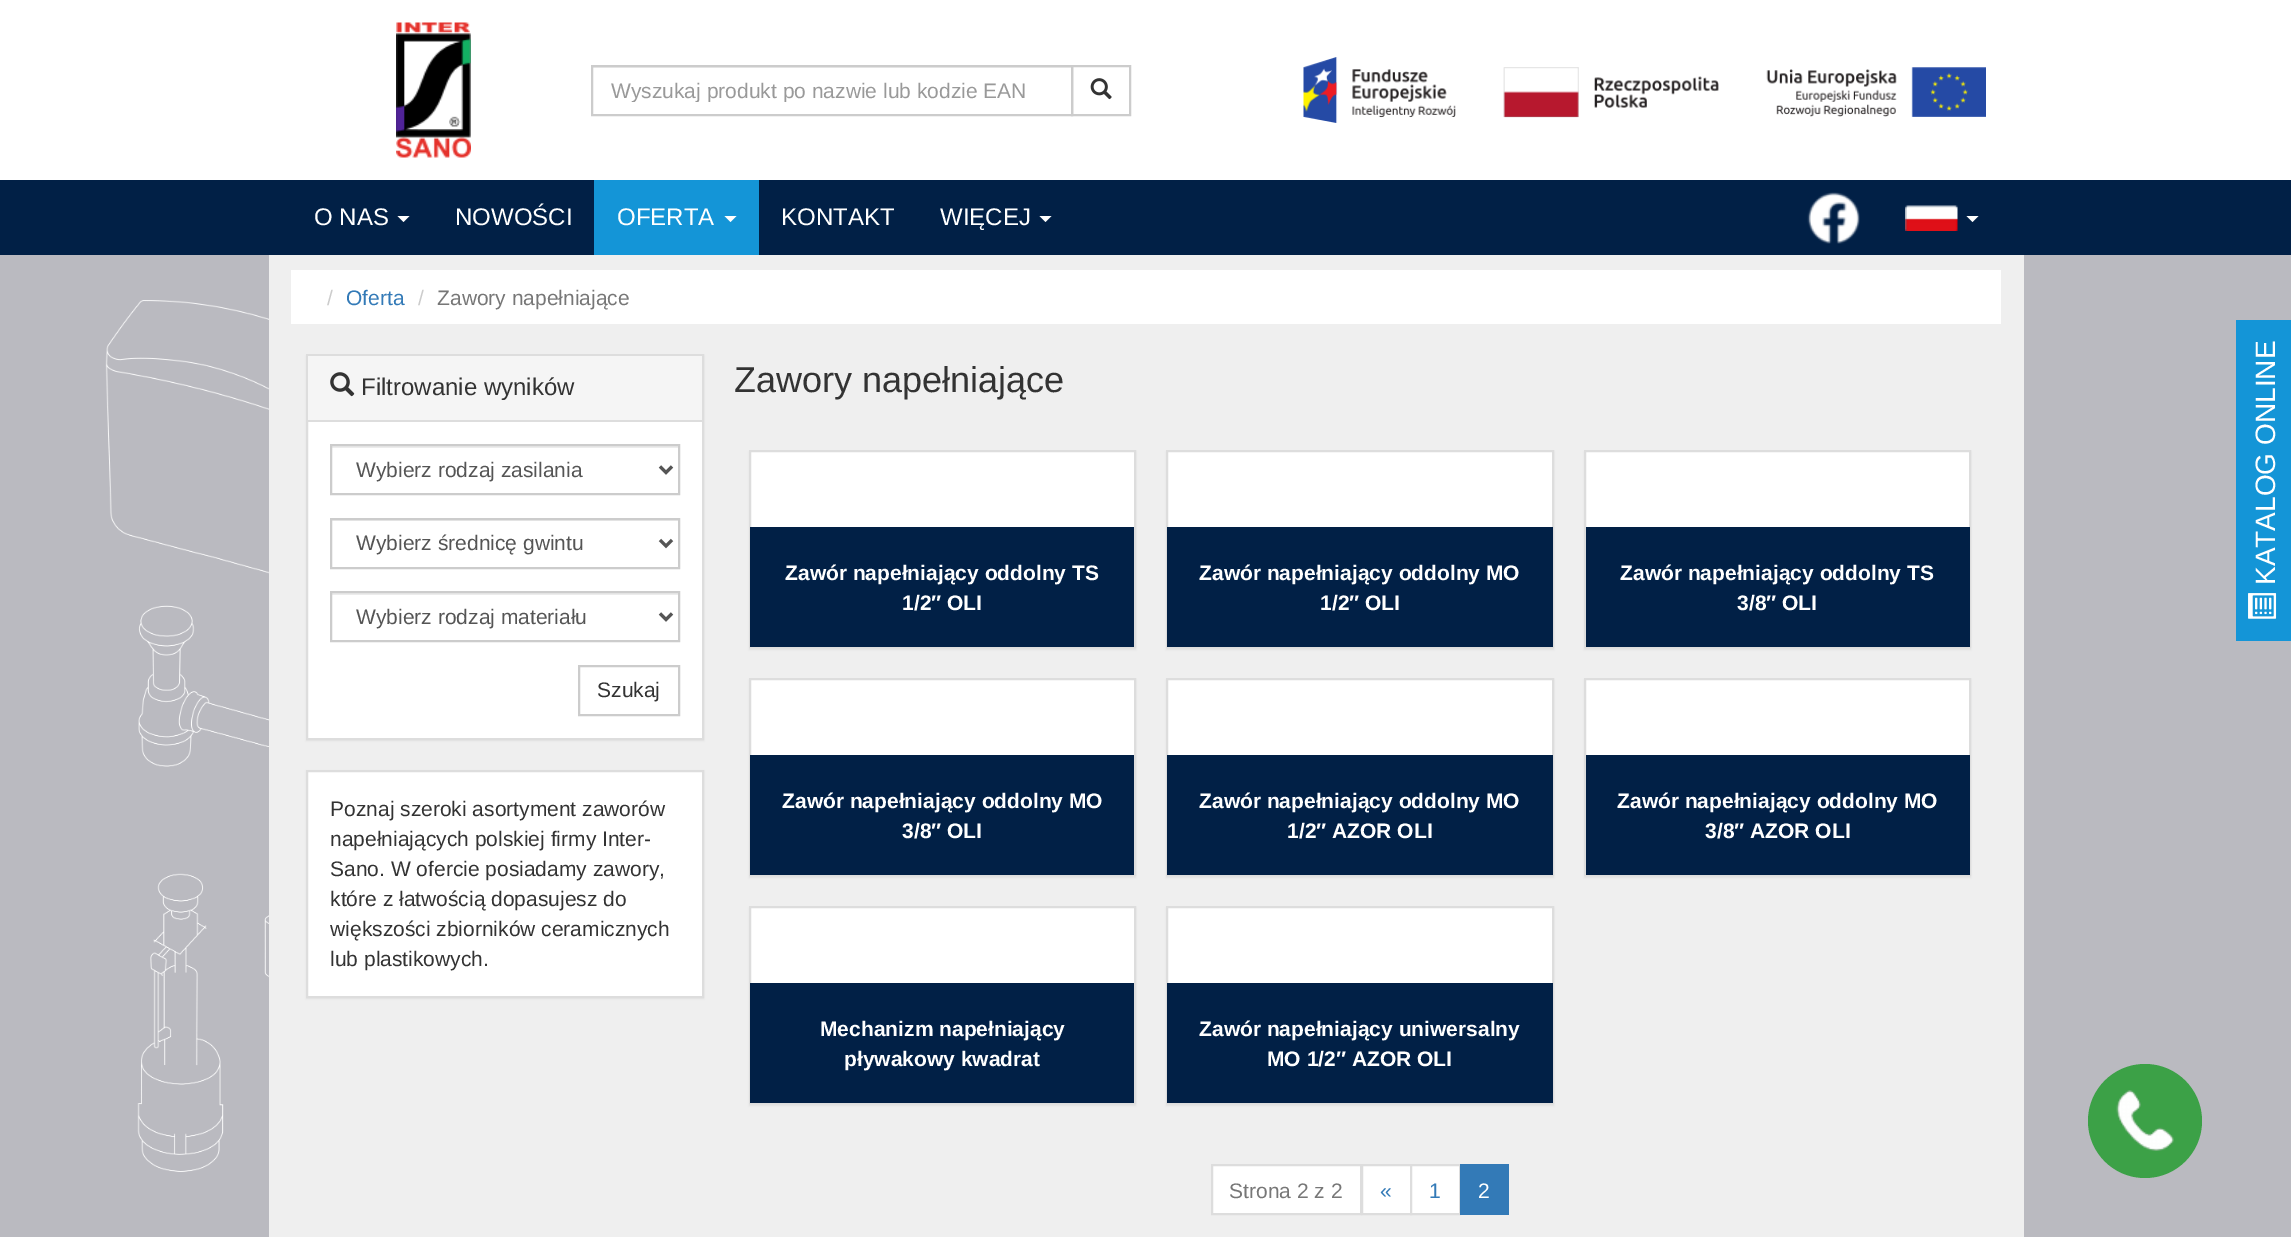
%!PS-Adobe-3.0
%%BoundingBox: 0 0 2291 1237
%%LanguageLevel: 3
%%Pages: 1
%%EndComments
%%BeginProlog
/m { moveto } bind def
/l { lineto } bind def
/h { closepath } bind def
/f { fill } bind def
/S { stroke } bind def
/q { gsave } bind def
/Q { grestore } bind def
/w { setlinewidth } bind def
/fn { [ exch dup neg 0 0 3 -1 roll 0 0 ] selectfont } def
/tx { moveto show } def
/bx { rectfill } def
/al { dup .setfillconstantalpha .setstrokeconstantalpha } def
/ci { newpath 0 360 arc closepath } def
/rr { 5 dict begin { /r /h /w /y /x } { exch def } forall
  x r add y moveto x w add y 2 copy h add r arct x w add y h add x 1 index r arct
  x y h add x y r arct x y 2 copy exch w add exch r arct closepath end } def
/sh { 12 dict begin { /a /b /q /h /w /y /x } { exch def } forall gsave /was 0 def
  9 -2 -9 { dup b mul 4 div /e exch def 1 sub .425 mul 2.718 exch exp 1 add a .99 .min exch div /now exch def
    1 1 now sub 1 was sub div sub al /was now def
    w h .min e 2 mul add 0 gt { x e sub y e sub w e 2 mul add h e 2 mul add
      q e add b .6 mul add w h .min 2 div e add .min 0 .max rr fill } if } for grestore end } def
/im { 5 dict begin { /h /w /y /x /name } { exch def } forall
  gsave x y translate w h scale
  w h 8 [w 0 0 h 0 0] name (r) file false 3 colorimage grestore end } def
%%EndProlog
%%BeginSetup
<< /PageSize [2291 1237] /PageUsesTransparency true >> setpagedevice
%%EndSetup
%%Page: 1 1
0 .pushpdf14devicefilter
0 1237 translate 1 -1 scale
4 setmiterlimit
0.729 0.729 0.753 setrgbcolor
0 0 2291 1237 bx
(image0.raw) 105 300 164 872 im
1 setgray
0 0 2291 180 bx
(image1.raw) 396 22 75 136 im
0.925 setgray
593 67 478 1 bx
0.8 setgray
2 w
592 66 480 49 rectstroke
q
611 78 442 24 rectclip
/LiberationSans-Regular 21 fn
0.6 setgray
(Wyszukaj produkt po nazwie lub kodzie EAN) 611 98 tx
Q
1072 66 58 49 rectstroke
(image2.raw) 1090 78 22 22 im
(image3.raw) 1303 57 683 66 im
0.004 0.125 0.275 setrgbcolor
0 180 2291 75 bx
/LiberationSans-Regular 24 fn
1 setgray
(O NAS) 314 225 tx
397.5 216 m 409.5 216 l 403.5 222 l h f
(NOWOŚCI) 455 225 tx
0.078 0.584 0.843 setrgbcolor
594 180 165 75 bx
1 setgray
(OFERTA) 617 225 tx
724.5 216 m 736.5 216 l 730.5 222 l h f
(KONTAKT) 781 225 tx
(WIĘCEJ) 940 225 tx
1039.5 216 m 1051.5 216 l 1045.5 222 l h f
(image4.raw) 1807 192 53 52 im
(image5.raw) 1905 205 53 26 im
1966.5 216 m 1978.5 216 l 1972.5 222 l h f
0.937 setgray
269 255 1755 982 bx
1 setgray
291 270 1710 54 bx
/LiberationSans-Regular 21 fn
0.8 setgray
(/) 327 305 tx
0.2 0.478 0.718 setrgbcolor
(Oferta) 346 305 tx
0.8 setgray
(/) 418 305 tx
0.467 setgray
(Zawory napełniające) 437 305 tx
0 setgray
306 356 398 385 0 1 0.05 sh
1 setgray
308 422 394 316 bx
0.867 setgray
307 355 396 384 rectstroke
0.961 setgray
308 356 394 64 bx
0.867 setgray
308 420 394 2 bx
(image6.raw) 330 372 25 25 im
/LiberationSans-Regular 24 fn
0.2 setgray
(Filtrowanie wyników) 361 395 tx
0.925 setgray
332 446 346 2 bx
0.8 setgray
331 445 348 49 rectstroke
0.333 setgray
3 w
660 466.5 m 666 472.5 l 672 466.5 l S
/LiberationSans-Regular 21 fn
(Wybierz rodzaj zasilania) 356 477 tx
0.925 setgray
332 520 346 1 bx
0.8 setgray
2 w
331 519 348 49 rectstroke
0.333 setgray
3 w
660 540 m 666 546 l 672 540 l S
(Wybierz średnicę gwintu) 356 550 tx
0.925 setgray
332 593 346 2 bx
0.8 setgray
2 w
331 592 348 49 rectstroke
0.333 setgray
3 w
660 613.5 m 666 619.5 l 672 613.5 l S
(Wybierz rodzaj materiału) 356 624 tx
0.8 setgray
2 w
579 666 100 49 rectstroke
0.2 setgray
(Szukaj) 597 697 tx
0 setgray
306 771 398 228 0 1 0.05 sh
1 setgray
307 771 m 703 771 l 703 997 l 307 997 l h q f Q
0.867 setgray
S
0.2 setgray
(Poznaj szeroki asortyment zaworów) 330 816 tx
(napełniających polskiej firmy Inter-) 330 846 tx
(Sano. W ofercie posiadamy zawory,) 330 876 tx
(które z łatwością dopasujesz do) 330 906 tx
(większości zbiorników ceramicznych) 330 936 tx
(lub plastikowych.) 330 966 tx
/LiberationSans-Regular 36 fn
(Zawory napełniające) 734 392 tx
0 setgray
749 452 387 198 0 1 0.05 sh
1 setgray
751 452 383 75 bx
0.867 setgray
750 451 385 196 rectstroke
0.004 0.125 0.275 setrgbcolor
750 527 384 120 bx
/LiberationSans-Bold 21 fn
1 setgray
(Zawór napełniający oddolny TS) 785 580 tx
(1/2″ OLI) 902 610 tx
0 setgray
1166 452 388 198 0 1 0.05 sh
1 setgray
1168 452 384 75 bx
0.867 setgray
1167 451 386 196 rectstroke
0.004 0.125 0.275 setrgbcolor
1167 527 386 120 bx
1 setgray
(Zawór napełniający oddolny MO) 1199 580 tx
(1/2″ OLI) 1320 610 tx
0 setgray
1584 452 387 198 0 1 0.05 sh
1 setgray
1586 452 383 75 bx
0.867 setgray
1585 451 385 196 rectstroke
0.004 0.125 0.275 setrgbcolor
1586 527 384 120 bx
1 setgray
(Zawór napełniający oddolny TS) 1620 580 tx
(3/8″ OLI) 1737 610 tx
0 setgray
749 680 387 198 0 1 0.05 sh
1 setgray
751 680 383 75 bx
0.867 setgray
750 679 385 196 rectstroke
0.004 0.125 0.275 setrgbcolor
750 755 384 120 bx
1 setgray
(Zawór napełniający oddolny MO) 782 808 tx
(3/8″ OLI) 902 838 tx
0 setgray
1166 680 388 198 0 1 0.05 sh
1 setgray
1168 680 384 75 bx
0.867 setgray
1167 679 386 196 rectstroke
0.004 0.125 0.275 setrgbcolor
1167 755 386 120 bx
1 setgray
(Zawór napełniający oddolny MO) 1199 808 tx
(1/2″ AZOR OLI) 1287 838 tx
0 setgray
1584 680 387 198 0 1 0.05 sh
1 setgray
1586 680 383 75 bx
0.867 setgray
1585 679 385 196 rectstroke
0.004 0.125 0.275 setrgbcolor
1586 755 384 120 bx
1 setgray
(Zawór napełniający oddolny MO) 1617 808 tx
(3/8″ AZOR OLI) 1705 838 tx
0 setgray
749 908 387 198 0 1 0.05 sh
1 setgray
751 908 383 75 bx
0.867 setgray
750 907 385 196 rectstroke
0.004 0.125 0.275 setrgbcolor
750 983 384 120 bx
1 setgray
(Mechanizm napełniający) 820 1036 tx
(pływakowy kwadrat) 844 1066 tx
0 setgray
1166 908 388 198 0 1 0.05 sh
1 setgray
1168 908 384 75 bx
0.867 setgray
1167 907 386 196 rectstroke
0.004 0.125 0.275 setrgbcolor
1167 983 386 120 bx
1 setgray
(Zawór napełniający uniwersalny) 1199 1036 tx
(MO 1/2″ AZOR OLI) 1267 1066 tx
1212 1165 m 1361 1165 l 1361 1214 l 1212 1214 l h q f Q
0.867 setgray
S
/LiberationSans-Regular 21 fn
0.467 setgray
(Strona 2 z 2) 1229 1198 tx
1 setgray
1362 1165 m 1411 1165 l 1411 1214 l 1362 1214 l h q f Q
0.867 setgray
S
0.2 0.478 0.718 setrgbcolor
(«) 1380 1198 tx
1 setgray
1411 1165 m 1460 1165 l 1460 1214 l 1411 1214 l h q f Q
0.867 setgray
S
0.2 0.478 0.718 setrgbcolor
(1) 1429 1198 tx
1460 1164 49 51 bx
1 setgray
(2) 1478 1198 tx
0.078 0.584 0.843 setrgbcolor
2236 320 55 321 bx
/LiberationSans-Regular 28 fn
1 setgray
q 2275 585 translate -90 rotate 0 0 m (KATALOG ONLINE) show Q
(image7.raw) 2248 593 29 26 im
0.235 0.631 0.278 setrgbcolor
2145 1121 57 ci f
(image8.raw) 2116 1090 58 61 im
.poppdf14devicefilter showpage
%%EOF
